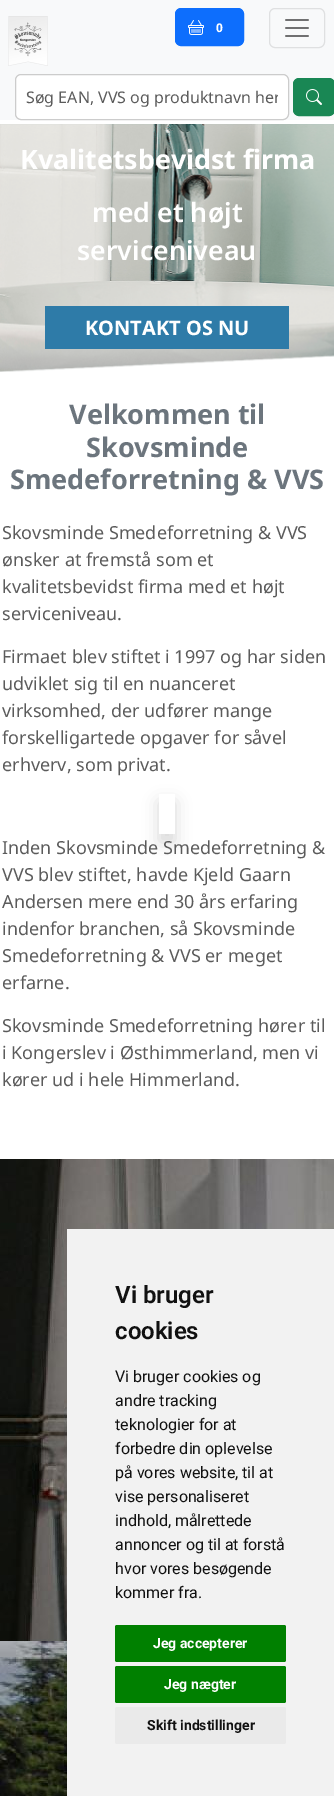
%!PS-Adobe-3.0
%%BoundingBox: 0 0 334 1796
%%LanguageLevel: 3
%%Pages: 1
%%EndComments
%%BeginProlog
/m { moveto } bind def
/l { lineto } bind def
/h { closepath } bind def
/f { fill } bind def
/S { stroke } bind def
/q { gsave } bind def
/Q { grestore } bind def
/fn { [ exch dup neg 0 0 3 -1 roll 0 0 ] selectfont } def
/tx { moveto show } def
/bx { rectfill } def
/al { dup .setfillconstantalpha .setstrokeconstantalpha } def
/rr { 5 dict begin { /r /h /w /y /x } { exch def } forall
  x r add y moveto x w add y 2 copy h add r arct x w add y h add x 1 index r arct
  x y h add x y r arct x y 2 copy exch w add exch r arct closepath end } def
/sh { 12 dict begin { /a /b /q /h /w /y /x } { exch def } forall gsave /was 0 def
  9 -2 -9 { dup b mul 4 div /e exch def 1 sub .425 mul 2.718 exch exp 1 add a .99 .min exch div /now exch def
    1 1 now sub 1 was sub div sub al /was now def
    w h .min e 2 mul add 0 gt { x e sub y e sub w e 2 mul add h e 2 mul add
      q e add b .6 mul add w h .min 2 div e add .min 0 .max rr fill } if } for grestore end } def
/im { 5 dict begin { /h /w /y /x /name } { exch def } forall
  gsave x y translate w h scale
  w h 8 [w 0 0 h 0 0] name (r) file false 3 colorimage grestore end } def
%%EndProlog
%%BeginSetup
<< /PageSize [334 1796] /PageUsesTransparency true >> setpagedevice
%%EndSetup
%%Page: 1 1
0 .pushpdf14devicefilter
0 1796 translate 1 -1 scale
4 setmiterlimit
1 setgray
0 0 334 1796 bx
0.973 0.976 0.98 setrgbcolor
0 0 334 120 bx
(image0.raw) 8 16 40 50 im
0.051 0.431 0.992 setrgbcolor
175.5 8.5 68 37 5.5 rr q f Q
S
(image1.raw) 188 20 16 15 im
/NotoSans-Bold 12 fn
1 setgray
(0) 216 32 tx
0.875 0.878 0.882 setrgbcolor
269.5 8.5 55 39 5.5 rr S
(image2.raw) 285 19 24 18 im
1 setgray
15.5 74.5 273 45 5.5 rr q f Q
0.8 setgray
S
q
26 86 252 22 rectclip
/NotoSans-Regular 16 fn
0.357 setgray
(Søg EAN, VVS og produktnavn her) 26 103 tx
Q
0.098 0.529 0.329 setrgbcolor
293.5 78.5 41 37 5.5 rr q f Q
S
(image3.raw) 306 89 16 16 im
(image4.raw) 0 124 334 248 im
/NotoSans-Bold 26.75 fn
1 setgray
(Kvalitetsbevidst firma) 20 169 tx
/NotoSans-SemiBold 26.75 fn
(med et højt) 92 222 tx
(serviceniveau) 77 260 tx
0.18 0.482 0.659 setrgbcolor
45 306 244 43 bx
/NotoSans-Bold 20 fn
1 setgray
(KONTAKT OS NU) 85 335 tx
/NotoSans-Bold 27 fn
0.424 0.459 0.49 setrgbcolor
(Velkommen til) 69 424 tx
(Skovsminde) 86 457 tx
(Smedeforretning & VVS) 10 489 tx
/NotoSans-Regular 18 fn
0.357 setgray
(Skovsminde Smedeforretning & VVS) 2 539 tx
(ønsker at fremstå som et) 2 566 tx
(kvalitetsbevidst firma med et højt) 2 593 tx
(serviceniveau.) 2 620 tx
(Firmaet blev stiftet i 1997 og har siden) 2 663 tx
(udviklet sig til en nuanceret) 2 690 tx
(virksomhed, der udfører mange) 2 717 tx
(forskelligartede opgaver for såvel) 2 744 tx
(erhverv, som privat.) 2 771 tx
q
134 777 m 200 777 l 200 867 l 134 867 l h 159 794 m 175 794 l 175 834 l 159 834 l h eoclip newpath
0 setgray
159 802 16 40 0 8 0.15 sh
Q
(Inden Skovsminde Smedeforretning &) 2 854 tx
(VVS blev stiftet, havde Kjeld Gaarn) 2 881 tx
(Andersen mere end 30 års erfaring) 2 908 tx
(indenfor branchen, så Skovsminde) 2 935 tx
(Smedeforretning & VVS er meget) 2 962 tx
(erfarne.) 2 989 tx
(Skovsminde Smedeforretning hører til) 2 1032 tx
(i Kongerslev i Østhimmerland, men vi) 2 1059 tx
(kører ud i hele Himmerland.) 2 1086 tx
(image5.raw) 0 1159 334 482 im
(image6.raw) 0 1641 67 155 im
0.949 setgray
67 1229 267 567 bx
/Roboto-SemiBold 24 fn
0.067 setgray
(Vi bruger) 115 1303 tx
(cookies) 115 1339 tx
/Roboto-Regular 16 fn
(Vi bruger cookies og) 115 1382 tx
(andre tracking) 115 1406 tx
(teknologier for at) 115 1430 tx
(forbedre din oplevelse) 115 1454 tx
(på vores website, til at) 115 1478 tx
(vise personaliseret) 115 1502 tx
(indhold, målrettede) 115 1526 tx
(annoncer og til at forstå) 115 1550 tx
(hvor vores besøgende) 115 1574 tx
(kommer fra.) 115 1598 tx
0 0.502 0 setrgbcolor
115 1625 171 37 2 rr f
/Roboto-Bold 14 fn
1 setgray
(Jeg accepterer) 153 1648 tx
0 0.502 0 setrgbcolor
115 1666 171 37 2 rr f
1 setgray
(Jeg nægter) 164 1689 tx
0.918 setgray
115 1707 171 37 2 rr f
0.067 setgray
(Skift indstillinger) 147 1730 tx
.poppdf14devicefilter showpage
%%EOF
